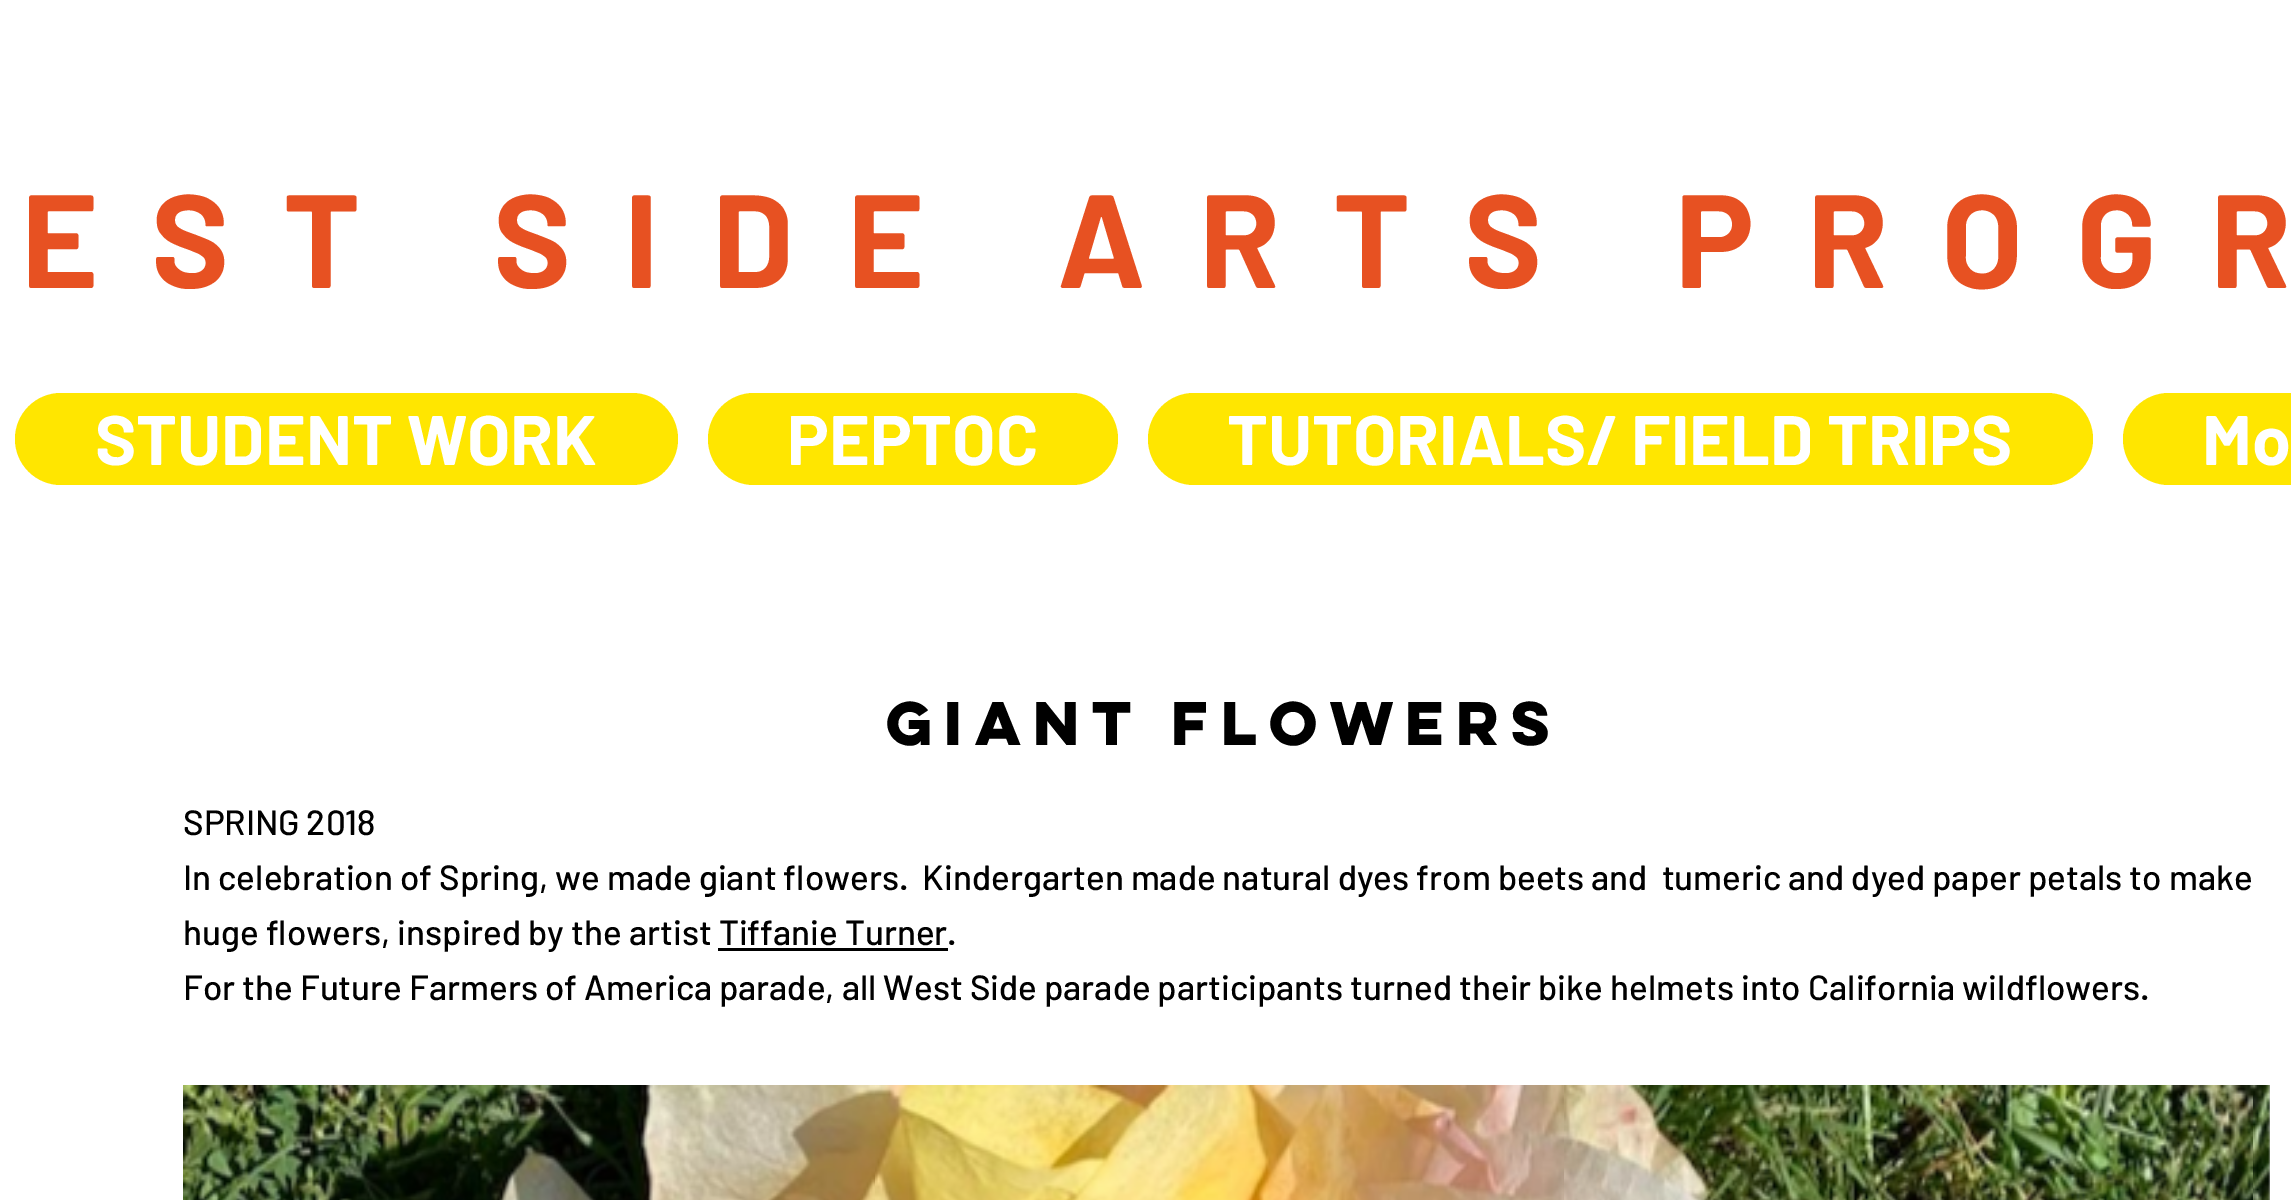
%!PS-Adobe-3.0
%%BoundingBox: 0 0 2291 1200
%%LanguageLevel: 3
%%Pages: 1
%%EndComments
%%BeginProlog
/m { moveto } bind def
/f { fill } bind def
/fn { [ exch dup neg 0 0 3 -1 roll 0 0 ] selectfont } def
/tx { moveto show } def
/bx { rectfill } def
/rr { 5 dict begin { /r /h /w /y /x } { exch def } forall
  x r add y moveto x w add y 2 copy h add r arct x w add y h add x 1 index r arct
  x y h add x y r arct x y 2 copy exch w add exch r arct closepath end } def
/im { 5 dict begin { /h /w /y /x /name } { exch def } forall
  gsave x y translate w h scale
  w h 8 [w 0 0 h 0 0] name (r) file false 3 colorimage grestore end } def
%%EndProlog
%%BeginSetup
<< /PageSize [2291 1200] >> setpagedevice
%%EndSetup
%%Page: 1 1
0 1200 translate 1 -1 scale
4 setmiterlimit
1 setgray
0 0 2291 1200 bx
/Barlow-Bold 132.5 fn
0.906 0.318 0.133 setrgbcolor
21 288 m 53 0 (EST SIDE ARTS PROGR) ashow
1 0.902 0 setrgbcolor
15 393 663 92 46 rr f
/Barlow-Bold 70 fn
1 setgray
(STUDENT WORK) 95 465 tx
1 0.902 0 setrgbcolor
708 393 410 92 46 rr f
1 setgray
(PEPTOC) 787 465 tx
1 0.902 0 setrgbcolor
1148 393 945 92 46 rr f
1 setgray
(TUTORIALS/ FIELD TRIPS) 1227 465 tx
1 0.902 0 setrgbcolor
2123 393 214 92 46 rr f
1 setgray
(Mo) 2202 465 tx
/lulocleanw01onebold-Bold 55 fn
0 setgray
(GIANT FLOWERS) 886 745 tx
/Barlow-Medium 35 fn
(SPRING 2018) 183 835 tx
(In celebration of Spring, we made giant flowers.  Kindergarten made natural dyes from beets and  tumeric and dyed paper petals to make) 183 890 tx
(huge flowers, inspired by the artist Tiffanie Turner.) 183 945 tx
718 948 230 3 bx
(For the Future Farmers of America parade, all West Side parade participants turned their bike helmets into California wildflowers.) 183 1000 tx
0.78 setgray
2268 1085 2 115 bx
(image0.raw) 183 1085 2087 115 im
showpage
%%EOF
